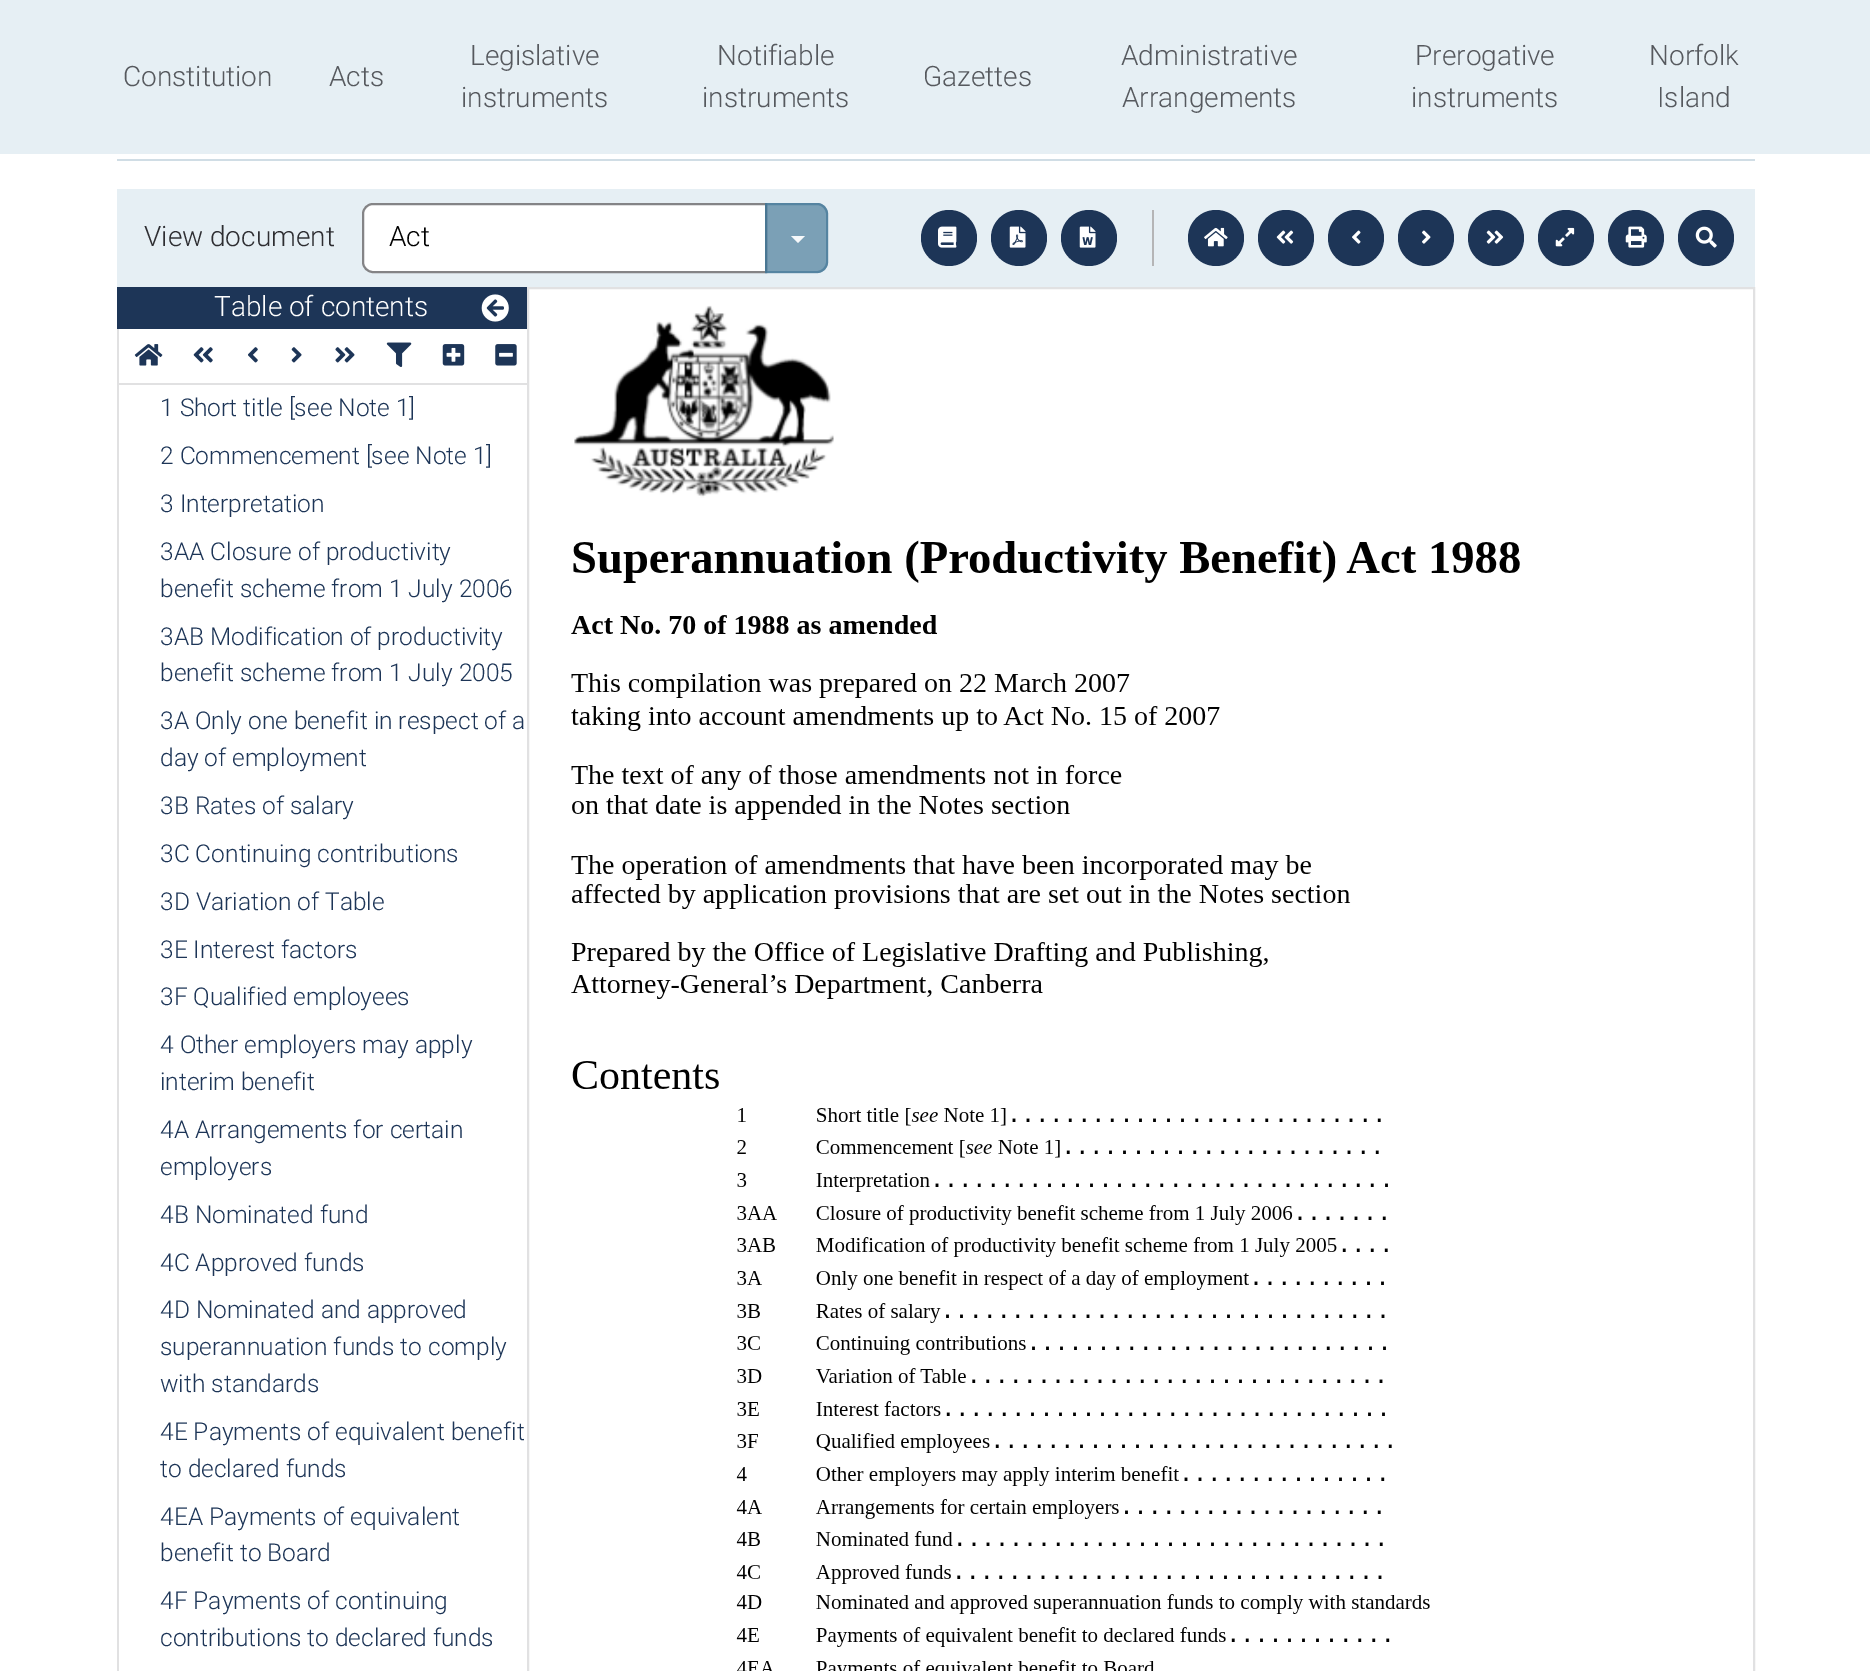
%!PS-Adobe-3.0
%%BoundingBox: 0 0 1870 1671
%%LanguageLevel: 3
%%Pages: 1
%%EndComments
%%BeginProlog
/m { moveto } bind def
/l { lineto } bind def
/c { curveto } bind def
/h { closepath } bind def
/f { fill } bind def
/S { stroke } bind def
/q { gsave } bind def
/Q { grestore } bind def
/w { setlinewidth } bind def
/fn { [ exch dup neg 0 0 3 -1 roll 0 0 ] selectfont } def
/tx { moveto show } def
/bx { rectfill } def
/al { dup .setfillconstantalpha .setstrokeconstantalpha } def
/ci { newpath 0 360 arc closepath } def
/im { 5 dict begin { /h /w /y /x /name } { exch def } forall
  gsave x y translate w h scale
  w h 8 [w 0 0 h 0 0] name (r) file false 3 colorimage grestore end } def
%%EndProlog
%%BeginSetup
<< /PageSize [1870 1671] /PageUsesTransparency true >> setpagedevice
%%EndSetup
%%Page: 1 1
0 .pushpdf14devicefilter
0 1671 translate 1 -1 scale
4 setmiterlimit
1 setgray
0 0 1870 1671 bx
0.902 0.937 0.957 setrgbcolor
0 0 1870 154 bx
/Roboto-Light 28 fn
0.337 0.349 0.369 setrgbcolor
(Constitution) 123 86 tx
(Acts) 329 86 tx
(Legislative) 470 65 tx
(instruments) 461 107 tx
(Notifiable) 717 65 tx
(instruments) 702 107 tx
(Gazettes) 923 86 tx
(Administrative) 1121 65 tx
(Arrangements) 1122 107 tx
(Prerogative) 1415 65 tx
(instruments) 1411 107 tx
(Norfolk) 1649 65 tx
(Island) 1657 107 tx
0.816 0.867 0.898 setrgbcolor
117 159 1638 2 bx
0.902 0.937 0.957 setrgbcolor
117 189 1638 98 bx
0.176 0.176 0.192 setrgbcolor
(View document) 144 246 tx
1 setgray
373 204 m 766 204 l 766 272 l 373 272 l 367.5 272 363 267.5 363 262 c 363 214 l 363 208.5 367.5 204 373 204 c h q f Q
0.518 0.518 0.525 setrgbcolor
2 w
S
0 setgray
(Act) 389 246 tx
0.65 al
0.255 0.459 0.584 setrgbcolor
765 203 m 817 203 l 823 203 828 208 828 214 c 828 262 l 828 268 823 273 817 273 c 765 273 l h f
766 204 m 817 204 l 822.5 204 827 208.5 827 214 c 827 262 l 827 267.5 822.5 272 817 272 c 766 272 l h S
1 al
0.965 0.976 0.984 setrgbcolor
791 236 m 805 236 l 798 243 l h f
0.114 0.208 0.341 setrgbcolor
949 238 28 ci f
(image0.raw) 938 226 19 22 im
1019 238 28 ci f
(image1.raw) 1009 226 17 22 im
1089 238 28 ci f
(image2.raw) 1079 226 17 22 im
0.71 0.71 0.714 setrgbcolor
1152 210 2 56 bx
0.114 0.208 0.341 setrgbcolor
1216 238 28 ci f
(image3.raw) 1204 227 24 20 im
1286 238 28 ci f
(image4.raw) 1276 230 18 14 im
1356 238 28 ci f
(image5.raw) 1352 230 9 14 im
1426 238 28 ci f
(image6.raw) 1422 230 9 14 im
1496 238 28 ci f
(image7.raw) 1486 230 18 14 im
1566 238 28 ci f
(image8.raw) 1555 227 20 20 im
1636 238 28 ci f
(image9.raw) 1625 226 22 22 im
1706 238 28 ci f
(image10.raw) 1695 226 22 22 im
117 287 410 42 bx
1 setgray
(Table of contents) 214 316 tx
(image11.raw) 481 294 28 28 im
0.882 0.882 0.886 setrgbcolor
117 383 410 2 bx
117 329 2 56 bx
(image12.raw) 134 344 29 22 im
(image13.raw) 193 347 20 16 im
(image14.raw) 248 347 10 16 im
(image15.raw) 291 347 11 16 im
(image16.raw) 335 347 20 16 im
(image17.raw) 386 342 26 25 im
(image18.raw) 442 344 23 22 im
(image19.raw) 495 344 22 22 im
117 385 2 1286 bx
/Roboto-Light 24.5 fn
0.114 0.208 0.341 setrgbcolor
(1 Short title [see Note 1]) 160 416 tx
(2 Commencement [see Note 1]) 160 464 tx
(3 Interpretation) 160 512 tx
(3AA Closure of productivity) 160 560 tx
(benefit scheme from 1 July 2006) 160 597 tx
(3AB Modification of productivity) 160 645 tx
(benefit scheme from 1 July 2005) 160 681 tx
(3A Only one benefit in respect of a) 160 729 tx
(day of employment) 160 766 tx
(3B Rates of salary) 160 814 tx
(3C Continuing contributions) 160 862 tx
(3D Variation of Table) 160 910 tx
(3E Interest factors) 160 958 tx
(3F Qualified employees) 160 1005 tx
(4 Other employers may apply) 160 1053 tx
(interim benefit) 160 1090 tx
(4A Arrangements for certain) 160 1138 tx
(employers) 160 1175 tx
(4B Nominated fund) 160 1223 tx
(4C Approved funds) 160 1271 tx
(4D Nominated and approved) 160 1318 tx
(superannuation funds to comply) 160 1355 tx
(with standards) 160 1392 tx
(4E Payments of equivalent benefit) 160 1440 tx
(to declared funds) 160 1477 tx
(4EA Payments of equivalent) 160 1525 tx
(benefit to Board) 160 1561 tx
(4F Payments of continuing) 160 1609 tx
(contributions to declared funds) 160 1646 tx
0.882 0.882 0.886 setrgbcolor
528 288 1226 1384 rectstroke
(image20.raw) 571 305 949 1366 im
.poppdf14devicefilter showpage
%%EOF
